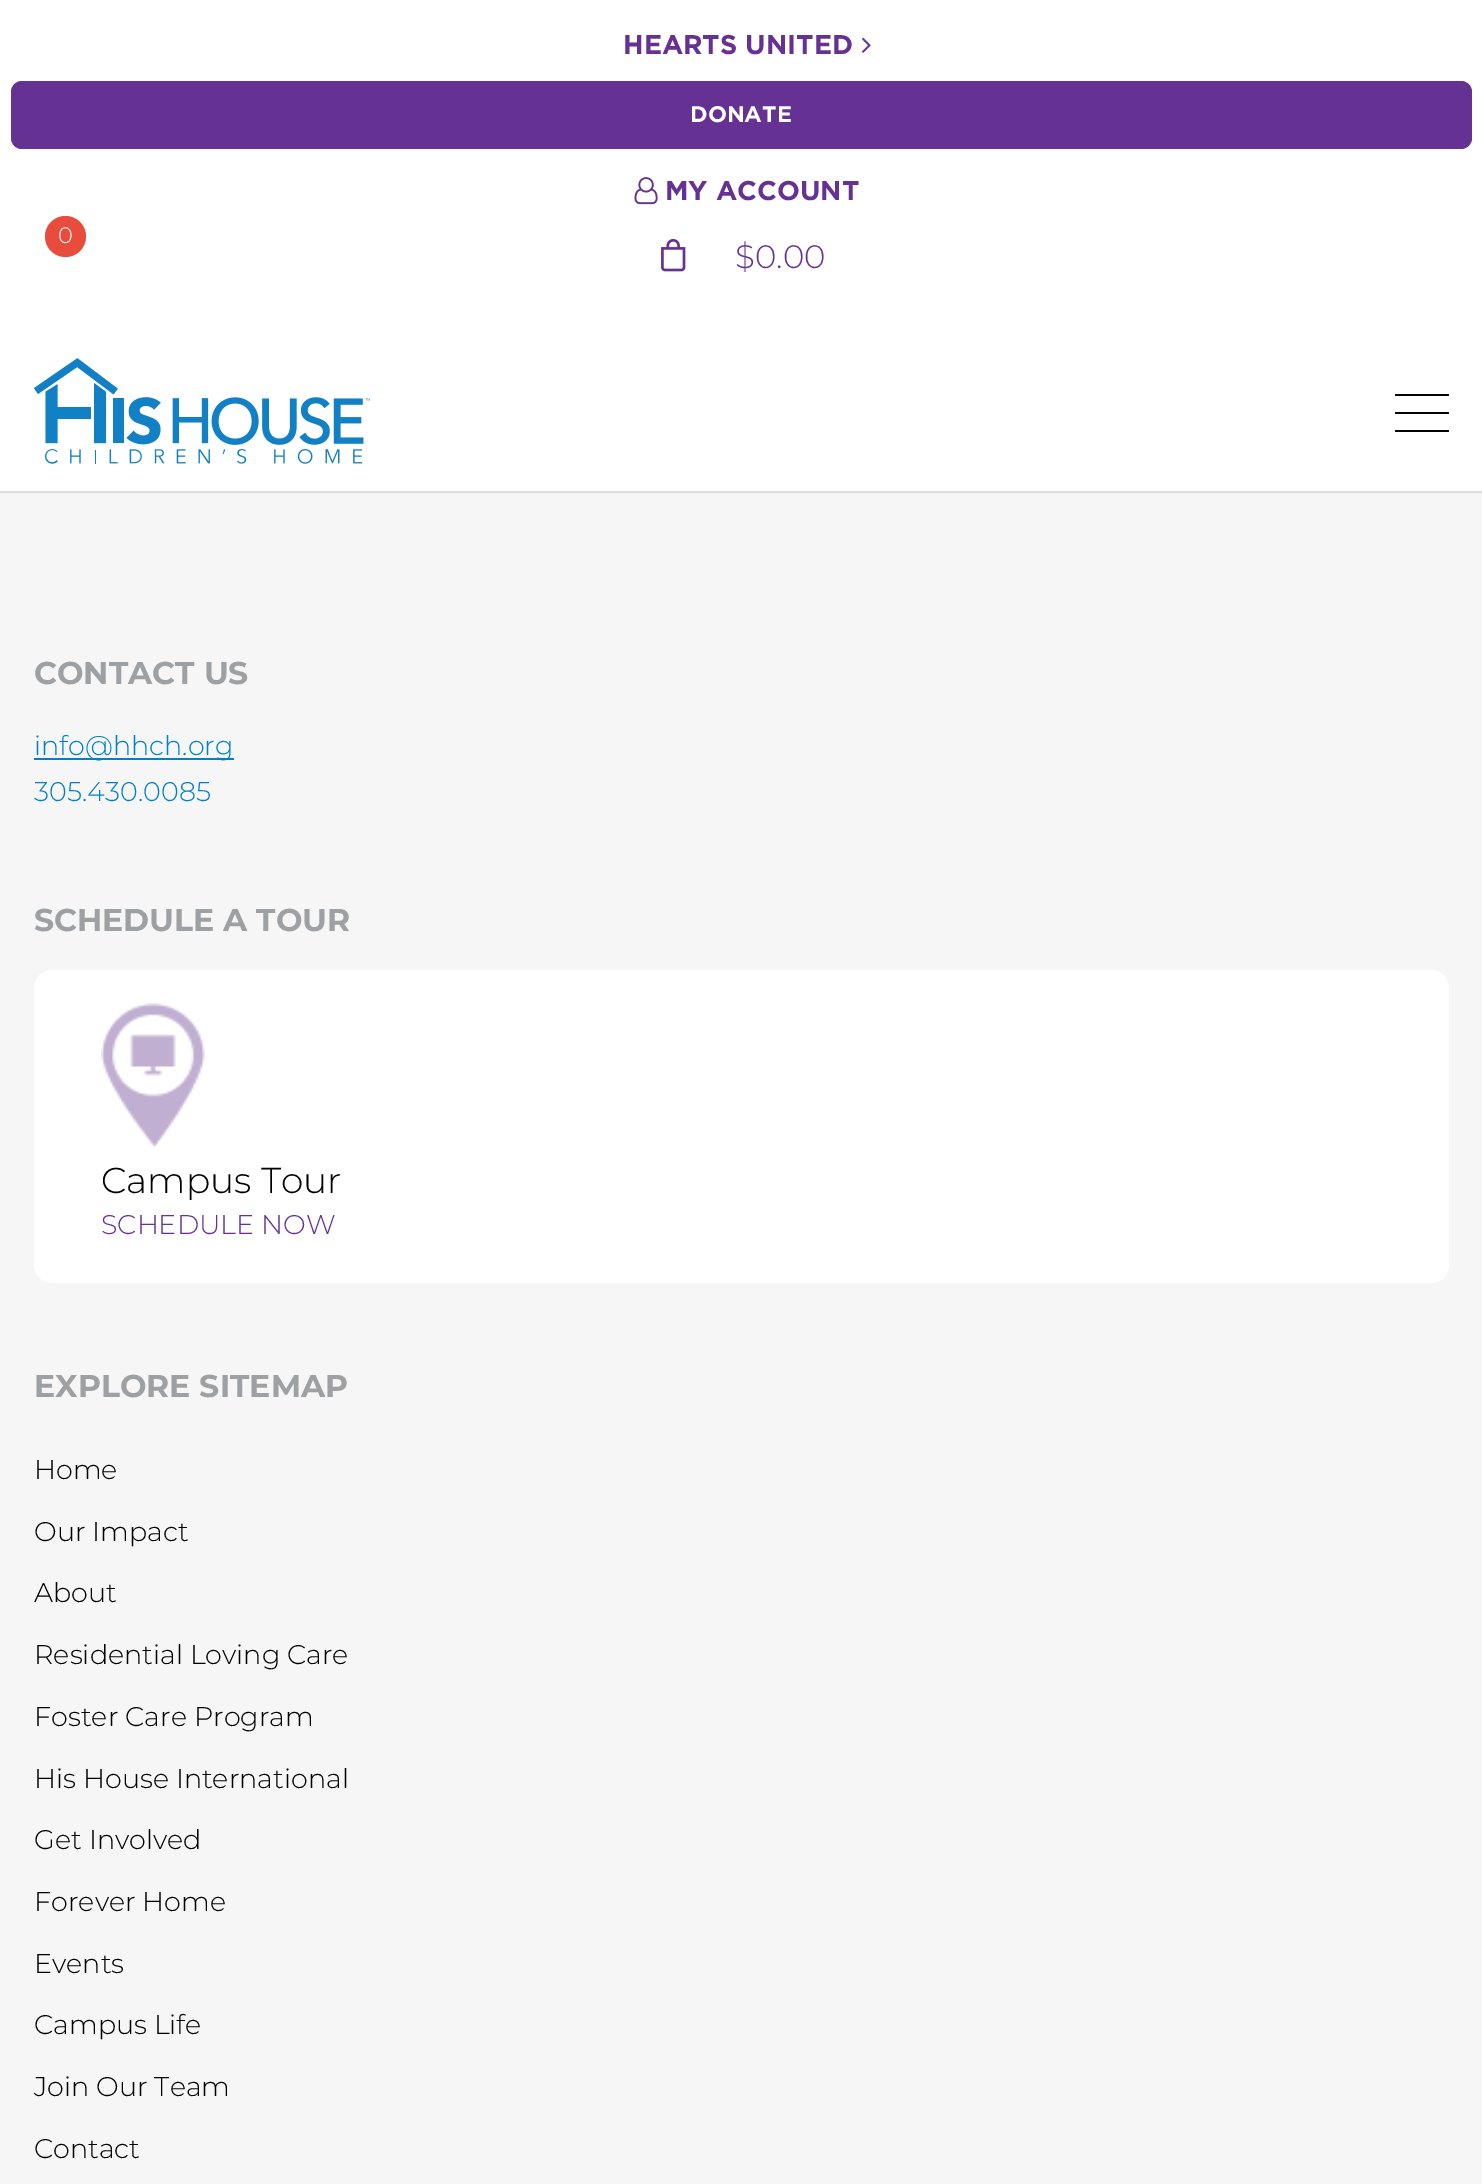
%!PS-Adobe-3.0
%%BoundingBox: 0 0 1482 2184
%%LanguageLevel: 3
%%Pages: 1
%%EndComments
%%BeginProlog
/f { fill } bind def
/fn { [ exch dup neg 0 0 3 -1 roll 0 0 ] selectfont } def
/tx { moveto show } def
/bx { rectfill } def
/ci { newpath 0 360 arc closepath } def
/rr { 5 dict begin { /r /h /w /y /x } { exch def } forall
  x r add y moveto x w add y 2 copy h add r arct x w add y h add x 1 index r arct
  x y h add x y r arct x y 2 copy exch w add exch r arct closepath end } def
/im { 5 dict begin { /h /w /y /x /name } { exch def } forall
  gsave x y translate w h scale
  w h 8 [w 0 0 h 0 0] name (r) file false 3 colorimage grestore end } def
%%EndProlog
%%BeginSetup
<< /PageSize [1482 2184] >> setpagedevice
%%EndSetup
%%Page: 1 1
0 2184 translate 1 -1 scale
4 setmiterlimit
1 setgray
0 0 1482 2184 bx
/Gotham-Bold 27 fn
0.396 0.192 0.576 setrgbcolor
(HEARTS UNITED) 623 54 tx
(image0.raw) 862 37 9 16 im
11 81 1461 68 11 rr f
/Gotham-Bold 22.5 fn
1 setgray
(DONATE) 690 122 tx
(image1.raw) 634 177 24 28 im
/Gotham-Bold 27 fn
0.396 0.192 0.576 setrgbcolor
(MY ACCOUNT) 665 200 tx
0.906 0.298 0.235 setrgbcolor
65.5 236.5 20.5 ci f
/Montserrat-Light 22.5 fn
1 setgray
(0) 58 243 tx
(image2.raw) 661 238 25 34 im
/Montserrat-Light 32.5 fn
0.396 0.192 0.576 setrgbcolor
($0.00) 735 268 tx
(image3.raw) 34 358 336 106 im
0 setgray
1395 394 54 2 1 rr f
1395 412 54 2 1 rr f
1395 430 54 2 1 rr f
0.965 setgray
0 493 1482 1691 bx
0.867 setgray
0 491 1482 2 bx
/Montserrat-Bold 31.5 fn
0.616 0.631 0.643 setrgbcolor
(CONTACT US) 34 684 tx
0 0.502 0.788 setrgbcolor
34 758 200 2 bx
/Montserrat-Light 27 fn
(info@hhch.org) 34 755 tx
(305.430.0085) 34 801 tx
/Montserrat-Bold 31.5 fn
0.616 0.631 0.643 setrgbcolor
(SCHEDULE A TOUR) 34 931 tx
1 setgray
34 970 1415 313 18 rr f
(image4.raw) 101 1003 104 145 im
/Montserrat-Light 36 fn
0 setgray
(Campus Tour) 101 1193 tx
/Montserrat-Light 27 fn
0.396 0.192 0.576 setrgbcolor
(SCHEDULE NOW) 101 1234 tx
/Montserrat-Bold 31.5 fn
0.616 0.631 0.643 setrgbcolor
(EXPLORE SITEMAP) 34 1397 tx
/Montserrat-Light 27 fn
0 setgray
(Home) 34 1479 tx
(Our Impact) 34 1541 tx
(About) 34 1602 tx
(Residential Loving Care) 34 1664 tx
(Foster Care Program) 34 1726 tx
(His House International) 34 1788 tx
(Get Involved) 34 1849 tx
(Forever Home) 34 1911 tx
(Events) 34 1973 tx
(Campus Life) 34 2034 tx
(Join Our Team) 34 2096 tx
(Contact) 34 2158 tx
showpage
%%EOF
